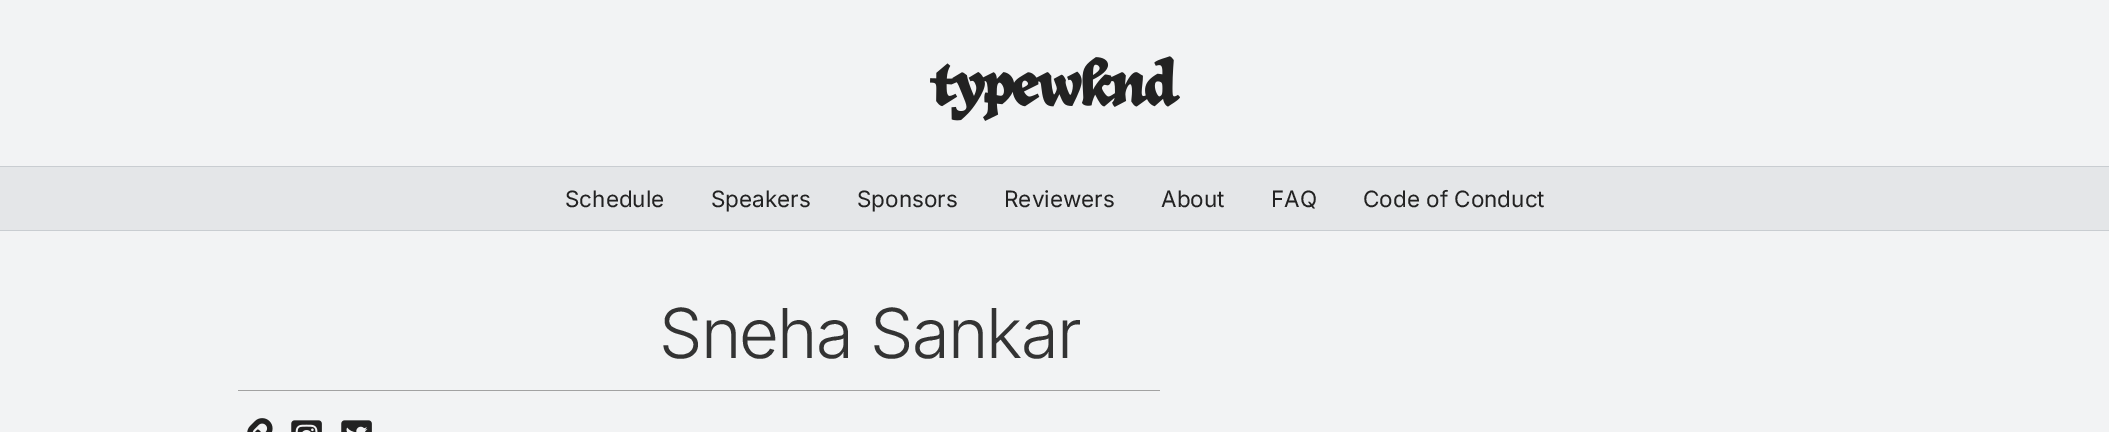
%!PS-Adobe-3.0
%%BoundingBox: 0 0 2109 432
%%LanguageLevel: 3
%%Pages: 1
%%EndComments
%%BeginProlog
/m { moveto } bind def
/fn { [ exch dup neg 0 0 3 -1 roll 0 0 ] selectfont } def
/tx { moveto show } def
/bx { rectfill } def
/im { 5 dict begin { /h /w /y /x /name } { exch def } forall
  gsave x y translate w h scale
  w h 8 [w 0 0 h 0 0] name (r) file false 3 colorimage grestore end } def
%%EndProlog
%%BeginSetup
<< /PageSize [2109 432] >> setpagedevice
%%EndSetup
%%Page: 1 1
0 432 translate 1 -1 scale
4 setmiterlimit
0.949 0.953 0.957 setrgbcolor
0 0 2109 432 bx
(image0.raw) 930 56 250 65 im
0.894 0.902 0.91 setrgbcolor
0 167 2109 63 bx
0.788 0.804 0.82 setrgbcolor
0 166 2109 1 bx
0 230 2109 1 bx
/Inter-Regular 22.5 fn
0.133 setgray
(Schedule) 565 207 tx
(Speakers) 711 207 tx
(Sponsors) 857 207 tx
(Reviewers) 1004 207 tx
(About) 1161 207 tx
(FAQ) 1271 207 tx
(Code of Conduct) 1363 207 tx
/Inter-Light 68.75 fn
0.2 setgray
659 358 m -1.75 0 (Sneha Sankar) ashow
0.635 setgray
238 390 922 1 bx
(image1.raw) 247 418 26 14 im
(image2.raw) 291 420 31 12 im
(image3.raw) 341 420 31 12 im
showpage
%%EOF
